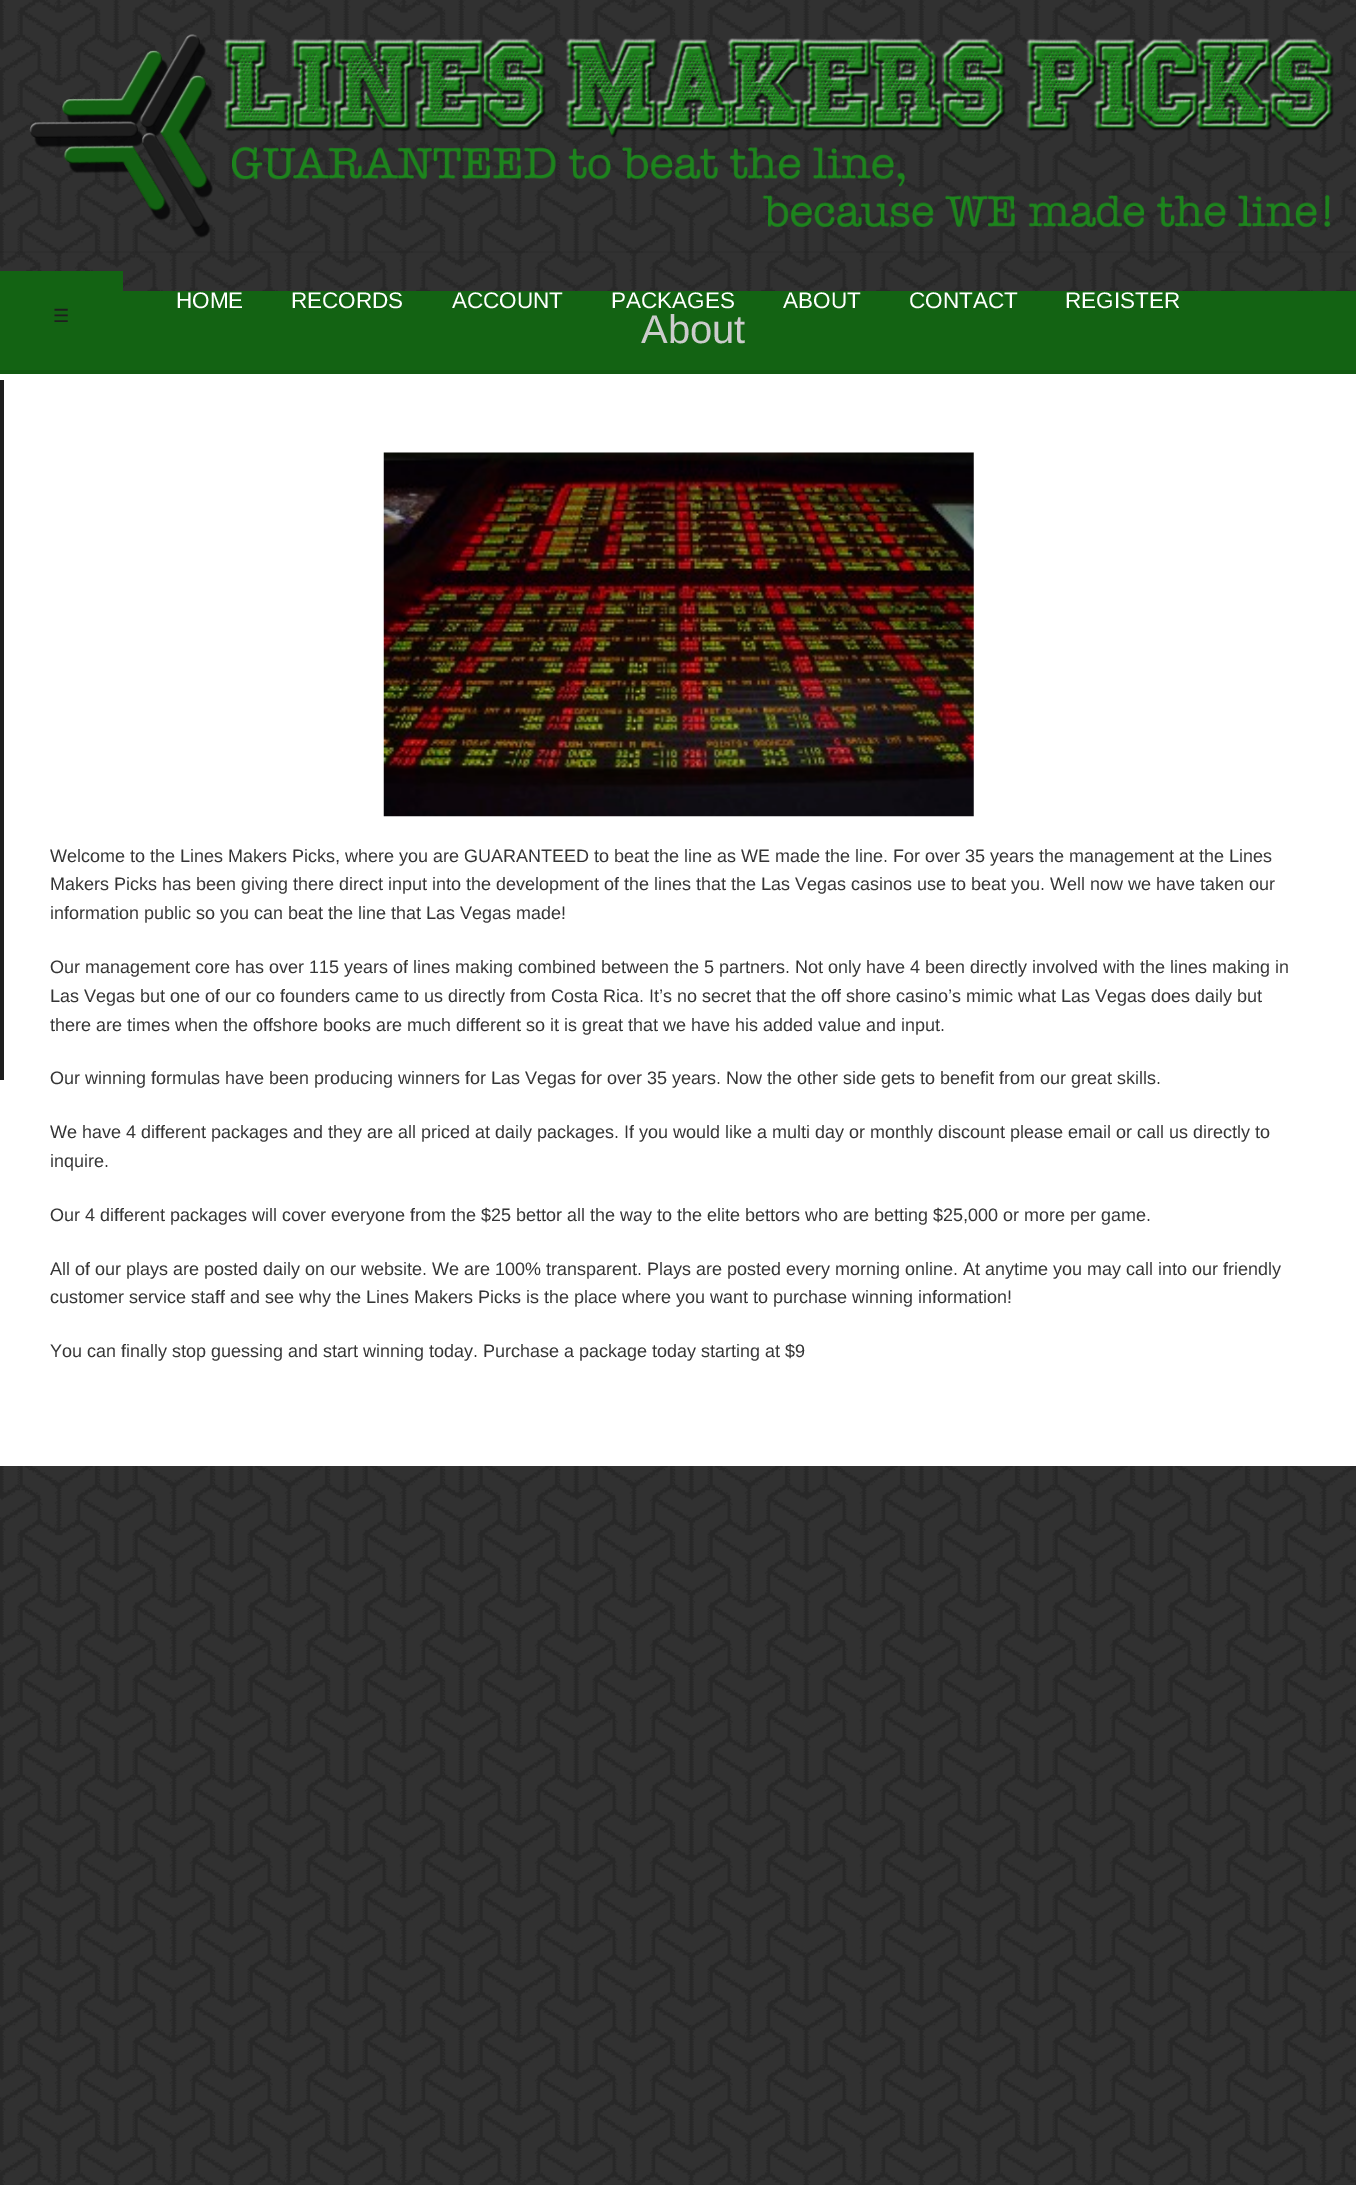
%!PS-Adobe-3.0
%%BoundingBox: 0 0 1356 2185
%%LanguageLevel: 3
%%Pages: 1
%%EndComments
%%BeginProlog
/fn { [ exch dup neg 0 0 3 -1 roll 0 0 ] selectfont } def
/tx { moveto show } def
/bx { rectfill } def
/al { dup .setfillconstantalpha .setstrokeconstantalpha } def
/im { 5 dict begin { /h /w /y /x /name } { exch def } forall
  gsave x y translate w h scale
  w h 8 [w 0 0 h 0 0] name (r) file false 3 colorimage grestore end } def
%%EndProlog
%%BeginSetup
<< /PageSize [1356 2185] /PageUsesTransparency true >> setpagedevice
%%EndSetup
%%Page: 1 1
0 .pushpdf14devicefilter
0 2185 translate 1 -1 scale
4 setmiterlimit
1 setgray
0 0 1356 2185 bx
(image0.raw) 0 0 1356 2185 im
0.06 al
0 setgray
0 251 1356 2 bx
1 al
(image1.raw) 29 34 1305 204 im
0.075 0.388 0.075 setrgbcolor
0 291 1356 79 bx
/LiberationSans-Regular 22.5 fn
1 setgray
(HOME) 176 308 tx
(RECORDS) 291 308 tx
(ACCOUNT) 452 308 tx
(PACKAGES) 611 308 tx
(ABOUT) 783 308 tx
(CONTACT) 909 308 tx
(REGISTER) 1065 308 tx
0.075 0.388 0.075 setrgbcolor
0 271 123 20 bx
/DejaVuSans-Regular 18 fn
0.118 setgray
(☰) 53 322 tx
1 setgray
0 374 1356 1092 bx
0.118 setgray
0 380 4 700 bx
0.067 0.349 0.067 setrgbcolor
0 370 1356 4 bx
/LiberationSans-Regular 40 fn
0.8 setgray
(About) 641 343 tx
(image2.raw) 383 452 591 365 im
/LiberationSans-Regular 18 fn
0.208 setgray
(Welcome to the Lines Makers Picks, where you are GUARANTEED to beat the line as WE made the line. For over 35 years the management at the Lines) 50 862 tx
(Makers Picks has been giving there direct input into the development of the lines that the Las Vegas casinos use to beat you. Well now we have taken our) 50 890 tx
(information public so you can beat the line that Las Vegas made!) 50 919 tx
(Our management core has over 115 years of lines making combined between the 5 partners. Not only have 4 been directly involved with the lines making in) 50 973 tx
(Las Vegas but one of our co founders came to us directly from Costa Rica. It’s no secret that the off shore casino’s mimic what Las Vegas does daily but) 50 1002 tx
(there are times when the offshore books are much different so it is great that we have his added value and input.) 50 1031 tx
(Our winning formulas have been producing winners for Las Vegas for over 35 years. Now the other side gets to benefit from our great skills.) 50 1084 tx
(We have 4 different packages and they are all priced at daily packages. If you would like a multi day or monthly discount please email or call us directly to) 50 1138 tx
(inquire.) 50 1167 tx
(Our 4 different packages will cover everyone from the $25 bettor all the way to the elite bettors who are betting $25,000 or more per game.) 50 1221 tx
(All of our plays are posted daily on our website. We are 100% transparent. Plays are posted every morning online. At anytime you may call into our friendly) 50 1275 tx
(customer service staff and see why the Lines Makers Picks is the place where you want to purchase winning information!) 50 1303 tx
(You can finally stop guessing and start winning today. Purchase a package today starting at $9) 50 1357 tx
.poppdf14devicefilter showpage
%%EOF
